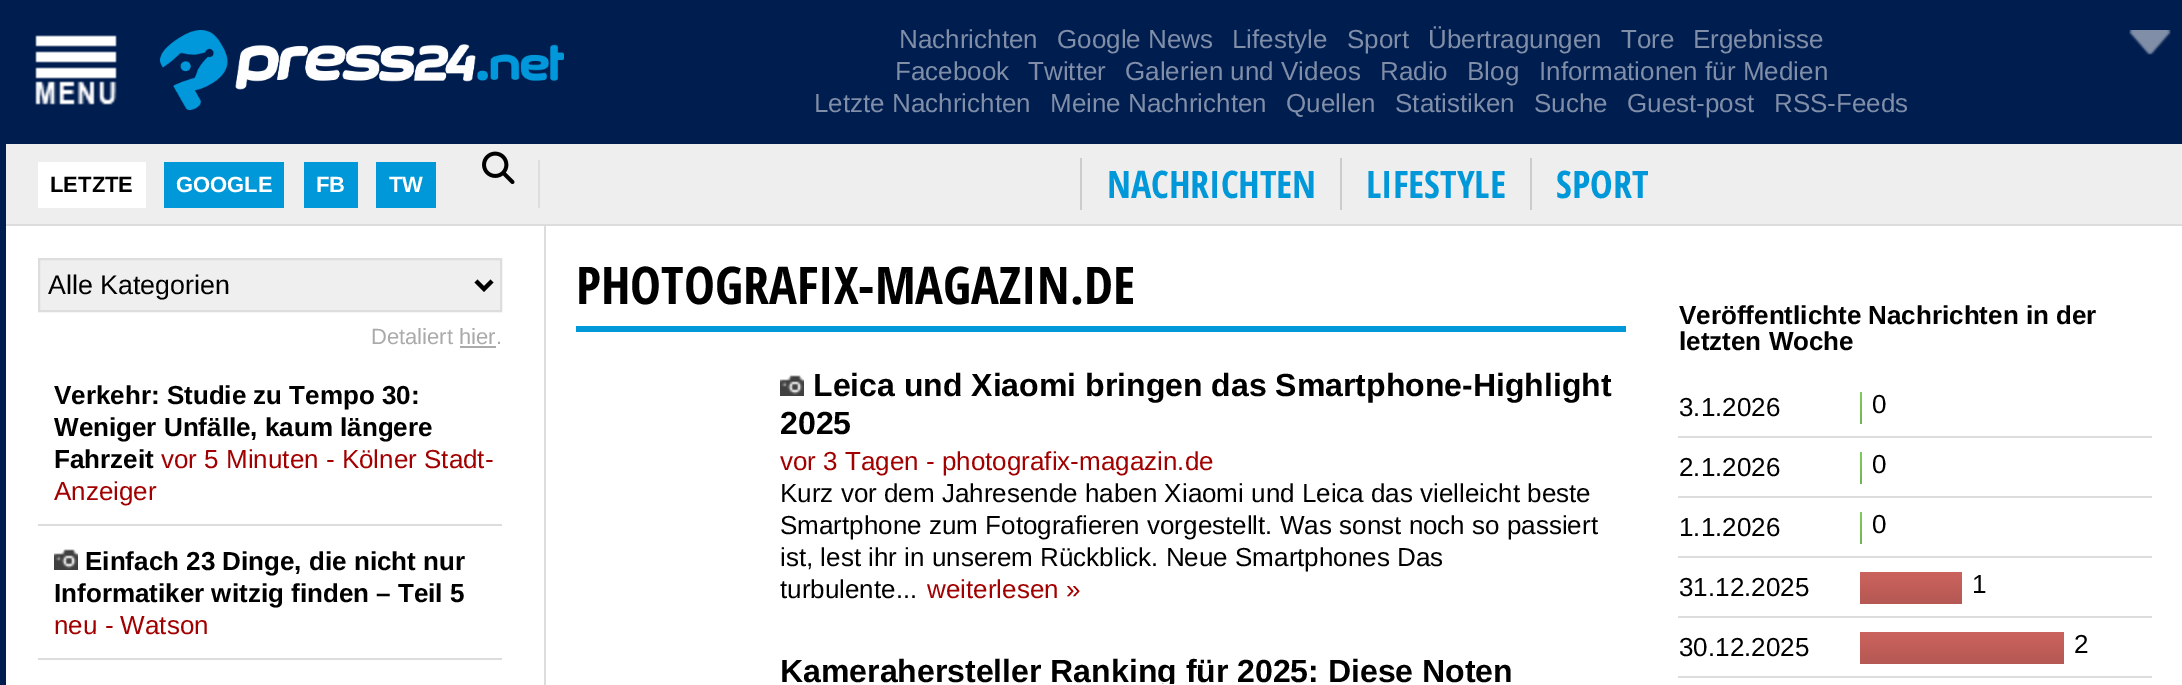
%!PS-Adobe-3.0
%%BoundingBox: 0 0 2182 685
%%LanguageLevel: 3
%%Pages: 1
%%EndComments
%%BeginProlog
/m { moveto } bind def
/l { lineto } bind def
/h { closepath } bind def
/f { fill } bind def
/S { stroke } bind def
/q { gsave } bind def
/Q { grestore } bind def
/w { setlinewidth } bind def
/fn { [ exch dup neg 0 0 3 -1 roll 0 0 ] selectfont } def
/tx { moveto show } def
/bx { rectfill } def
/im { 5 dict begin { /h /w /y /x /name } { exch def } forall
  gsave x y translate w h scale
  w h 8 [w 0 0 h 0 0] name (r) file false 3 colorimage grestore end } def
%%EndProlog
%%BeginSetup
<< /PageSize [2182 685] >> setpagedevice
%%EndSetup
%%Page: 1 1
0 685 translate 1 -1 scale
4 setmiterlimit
1 setgray
0 0 2182 685 bx
0 0.114 0.31 setrgbcolor
0 0 6 685 bx
6 0 2176 144 bx
(image0.raw) 35 35 82 70 im
(image1.raw) 160 30 404 80 im
/LiberationSans-Regular 26 fn
0.502 0.557 0.655 setrgbcolor
(Nachrichten) 899 48 tx
(Google News) 1057 48 tx
(Lifestyle) 1232 48 tx
(Sport) 1347 48 tx
(Übertragungen) 1428 48 tx
(Tore) 1621 48 tx
(Ergebnisse) 1693 48 tx
(Facebook) 895 80 tx
(Twitter) 1028 80 tx
(Galerien und Videos) 1125 80 tx
(Radio) 1380 80 tx
(Blog) 1467 80 tx
(Informationen für Medien) 1539 80 tx
(Letzte Nachrichten) 814 112 tx
(Meine Nachrichten) 1050 112 tx
(Quellen) 1286 112 tx
(Statistiken) 1395 112 tx
(Suche) 1534 112 tx
(Guest-post) 1627 112 tx
(RSS-Feeds) 1774 112 tx
(image2.raw) 2129 30 42 25 im
0.933 setgray
6 144 2176 80 bx
0.867 setgray
6 224 2176 2 bx
538 160 2 48 bx
1 setgray
38 162 108 46 bx
/LiberationSans-Bold 22 fn
0 setgray
(LETZTE) 50 192 tx
0 0.596 0.847 setrgbcolor
164 162 120 46 bx
1 setgray
(GOOGLE) 176 192 tx
0 0.596 0.847 setrgbcolor
304 162 54 46 bx
1 setgray
(FB) 316 192 tx
0 0.596 0.847 setrgbcolor
376 162 60 46 bx
1 setgray
(TW) 389 192 tx
(image3.raw) 482 151 33 33 im
/OpenSansCondensed-Bold 38 fn
0 0.596 0.847 setrgbcolor
(NACHRICHTEN) 1107 198 tx
0.8 setgray
1080 158 2 52 bx
0 0.596 0.847 setrgbcolor
(LIFESTYLE) 1366 198 tx
0.8 setgray
1340 158 2 52 bx
0 0.596 0.847 setrgbcolor
(SPORT) 1556 198 tx
0.8 setgray
1530 158 2 52 bx
0.867 setgray
544 226 2 459 bx
0.937 setgray
39 259 m 501 259 l 501 311 l 39 311 l h q f Q
0.867 setgray
2 w
S
0 setgray
4 w
476 281 m 484 289 l 492 281 l S
/LiberationSans-Regular 26.75 fn
(Alle Kategorien) 48 294 tx
/LiberationSans-Regular 22 fn
0.667 setgray
(Detaliert hier.) 371 344 tx
460 346 36 2 bx
0.867 setgray
38 524 464 2 bx
/LiberationSans-Bold 26 fn
0 setgray
(Verkehr: Studie zu Tempo 30:) 54 404 tx
(Weniger Unfälle, kaum längere) 54 436 tx
(Fahrzeit) 54 468 tx
/LiberationSans-Regular 26 fn
0.635 0 0 setrgbcolor
(vor 5 Minuten - Kölner Stadt-) 161 468 tx
(Anzeiger) 54 500 tx
0.867 setgray
38 658 464 2 bx
(image4.raw) 54 549 24 21 im
/LiberationSans-Bold 26 fn
0 setgray
(Einfach 23 Dinge, die nicht nur) 85 570 tx
(Informatiker witzig finden – Teil 5) 54 602 tx
/LiberationSans-Regular 26 fn
0.635 0 0 setrgbcolor
(neu - Watson) 54 634 tx
0 0.596 0.847 setrgbcolor
576 326 1050 6 bx
/OpenSansCondensed-Bold 52 fn
0 setgray
(PHOTOGRAFIX-MAGAZIN.DE) 576 304 tx
(image4.raw) 780 375 24 21 im
/LiberationSans-Bold 32 fn
(Leica und Xiaomi bringen das Smartphone-Highlight) 813 396 tx
(2025) 780 434 tx
/LiberationSans-Regular 26 fn
0.635 0 0 setrgbcolor
(vor 3 Tagen - photografix-magazin.de) 780 470 tx
0 setgray
(Kurz vor dem Jahresende haben Xiaomi und Leica das vielleicht beste) 780 502 tx
(Smartphone zum Fotografieren vorgestellt. Was sonst noch so passiert) 780 534 tx
(ist, lest ihr in unserem Rückblick. Neue Smartphones Das) 780 566 tx
(turbulente...) 780 598 tx
0.635 0 0 setrgbcolor
(weiterlesen ») 927 598 tx
q
546 226 1636 458 rectclip
/LiberationSans-Bold 32 fn
0 setgray
(Kamerahersteller Ranking für 2025: Diese Noten) 780 682 tx
Q
/LiberationSans-Bold 26 fn
0 setgray
(Veröffentlichte Nachrichten in der) 1679 324 tx
(letzten Woche) 1679 350 tx
/LiberationSans-Regular 26 fn
(3.1.2026) 1679 416 tx
0.867 setgray
1678 436 474 2 bx
(image5.raw) 1860 392 2 32 im
0 setgray
(0) 1872 413 tx
(2.1.2026) 1679 476 tx
0.867 setgray
1678 496 474 2 bx
(image5.raw) 1860 452 2 32 im
0 setgray
(0) 1872 473 tx
(1.1.2026) 1679 536 tx
0.867 setgray
1678 556 474 2 bx
(image5.raw) 1860 512 2 32 im
0 setgray
(0) 1872 533 tx
(31.12.2025) 1679 596 tx
0.867 setgray
1678 616 474 2 bx
(image6.raw) 1860 572 102 32 im
0 setgray
(1) 1972 593 tx
(30.12.2025) 1679 656 tx
0.867 setgray
1678 676 474 2 bx
(image7.raw) 1860 632 204 32 im
0 setgray
(2) 2074 653 tx
showpage
%%EOF
